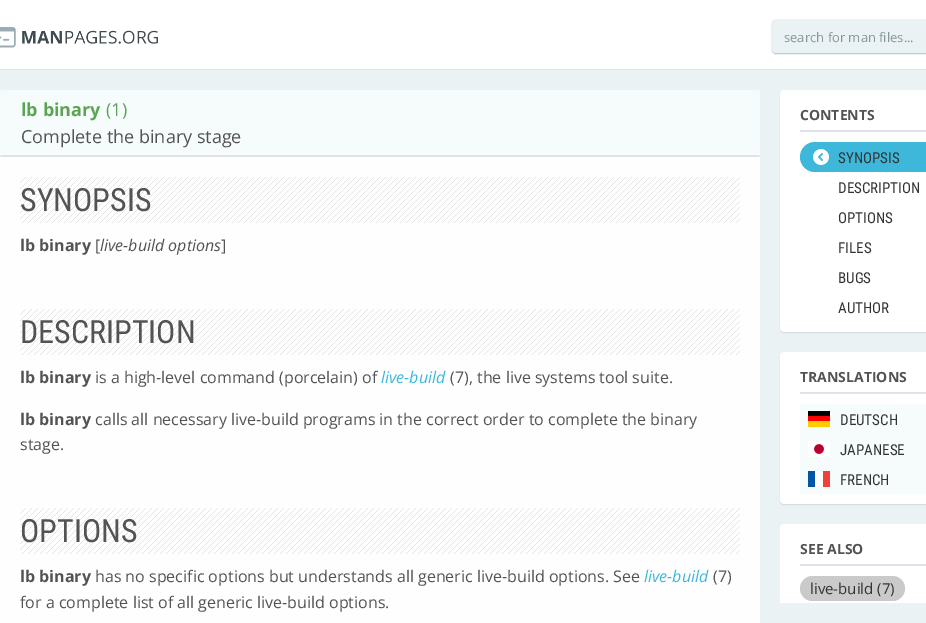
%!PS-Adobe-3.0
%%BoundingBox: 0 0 926 623
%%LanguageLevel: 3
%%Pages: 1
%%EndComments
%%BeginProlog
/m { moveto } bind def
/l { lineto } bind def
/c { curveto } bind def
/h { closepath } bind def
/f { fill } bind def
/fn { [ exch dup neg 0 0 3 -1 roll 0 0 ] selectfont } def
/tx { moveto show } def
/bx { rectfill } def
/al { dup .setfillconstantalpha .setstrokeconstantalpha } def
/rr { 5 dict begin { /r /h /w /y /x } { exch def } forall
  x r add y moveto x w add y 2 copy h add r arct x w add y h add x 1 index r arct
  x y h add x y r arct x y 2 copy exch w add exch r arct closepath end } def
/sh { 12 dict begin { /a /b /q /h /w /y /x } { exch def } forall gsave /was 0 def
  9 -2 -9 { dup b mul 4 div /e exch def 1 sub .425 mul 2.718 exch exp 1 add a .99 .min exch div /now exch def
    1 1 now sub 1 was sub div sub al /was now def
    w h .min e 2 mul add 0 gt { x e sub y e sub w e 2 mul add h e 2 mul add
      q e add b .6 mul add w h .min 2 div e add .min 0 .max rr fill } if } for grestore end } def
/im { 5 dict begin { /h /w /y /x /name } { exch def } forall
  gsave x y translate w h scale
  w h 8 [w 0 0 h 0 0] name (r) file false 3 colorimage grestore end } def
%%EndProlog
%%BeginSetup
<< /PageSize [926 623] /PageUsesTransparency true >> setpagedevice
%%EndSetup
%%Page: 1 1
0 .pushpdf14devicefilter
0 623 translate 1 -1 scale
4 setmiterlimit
0.918 0.949 0.957 setrgbcolor
0 0 926 623 bx
1 setgray
0 0 926 69 bx
0.863 0.898 0.906 setrgbcolor
0 69 926 1 bx
(image0.raw) 0 27 158 21 im
0.024 0.184 0.216 setrgbcolor
772 20 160 34 4 0.5 0.3 sh
0.918 0.949 0.957 setrgbcolor
772 19 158 34 4 rr f
/OpenSans-Regular 13 fn
0.525 0.588 0.616 setrgbcolor
(search for man files...) 784 42 tx
0.996 setgray
4 90 m 756 90 l 758 90 760 92 760 94 c 760 623 l 0 623 l 0 94 l 0 92 2 90 4 90 c h f
0.965 0.984 0.988 setrgbcolor
3 90 m 757 90 l 758.5 90 760 91.5 760 93 c 760 157 l 0 157 l 0 93 l 0 91.5 1.5 90 3 90 c h f
0.875 0.89 0.914 setrgbcolor
760 157 m 759 155 l 1 155 l 0 157 l h f
/OpenSans-Bold 18 fn
0.349 0.647 0.322 setrgbcolor
(lb binary) 21 116 tx
/OpenSans-Regular 18 fn
(\(1\)) 106 116 tx
0.325 setgray
(Complete the binary stage) 21 143 tx
(image1.raw) 20 177 720 46 im
/RobotoCondensed-Regular 32 fn
(SYNOPSIS) 20 211 tx
/OpenSans-Bold 16 fn
(lb binary) 20 251 tx
/OpenSans-Regular 16 fn
([) 95 251 tx
/OpenSans-Italic 16 fn
(live-build options) 100 251 tx
/OpenSans-Regular 16 fn
(]) 221 251 tx
(image1.raw) 20 309 720 46 im
/RobotoCondensed-Regular 32 fn
(DESCRIPTION) 20 343 tx
/OpenSans-Bold 16 fn
(lb binary) 20 383 tx
/OpenSans-Regular 16 fn
(is a high-level command \(porcelain\) of) 95 383 tx
/OpenSans-Italic 16 fn
0.239 0.722 0.859 setrgbcolor
(live-build) 381 383 tx
/OpenSans-Regular 16 fn
0.325 setgray
(\(7\), the live systems tool suite.) 450 383 tx
/OpenSans-Bold 16 fn
(lb binary) 20 425 tx
/OpenSans-Regular 16 fn
(calls all necessary live-build programs in the correct order to complete the binary) 95 425 tx
(stage.) 20 450 tx
(image1.raw) 20 508 720 46 im
/RobotoCondensed-Regular 32 fn
(OPTIONS) 20 542 tx
/OpenSans-Bold 16 fn
(lb binary) 20 582 tx
/OpenSans-Regular 16 fn
(has no specific options but understands all generic live-build options. See) 95 582 tx
/OpenSans-Italic 16 fn
0.239 0.722 0.859 setrgbcolor
(live-build) 644 582 tx
/OpenSans-Regular 16 fn
0.325 setgray
(\(7\)) 713 582 tx
(for a complete list of all generic live-build options.) 20 608 tx
0 setgray
780 91 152 242 4 0.5 0.1 sh
1 setgray
784 90 m 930 90 l 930 332 l 784 332 l 782 332 780 330 780 328 c 780 94 l 780 92 782 90 784 90 c h f
0.875 0.89 0.914 setrgbcolor
800 130 126 2 bx
/OpenSans-Bold 14 fn
0.325 setgray
(CONTENTS) 800 120 tx
0.239 0.722 0.859 setrgbcolor
800 142 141 30 15 rr f
(image2.raw) 813 149 16 16 im
/RobotoCondensed-Regular 15 fn
0.2 setgray
(SYNOPSIS) 838 163 tx
(DESCRIPTION) 838 193 tx
(OPTIONS) 838 223 tx
(FILES) 838 253 tx
(BUGS) 838 283 tx
(AUTHOR) 838 313 tx
0 setgray
780 353 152 152 4 0.5 0.1 sh
1 setgray
784 352 m 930 352 l 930 504 l 784 504 l 782 504 780 502 780 500 c 780 356 l 780 354 782 352 784 352 c h f
0.875 0.89 0.914 setrgbcolor
800 392 126 2 bx
/OpenSans-Bold 14 fn
0.325 setgray
(TRANSLATIONS) 800 382 tx
0.965 0.984 0.988 setrgbcolor
800 404 126 90 bx
(image3.raw) 808 411 22 16 im
/RobotoCondensed-Regular 15 fn
0.2 setgray
(DEUTSCH) 840 425 tx
(image4.raw) 808 441 22 16 im
(JAPANESE) 840 455 tx
(image5.raw) 808 471 22 16 im
(FRENCH) 840 485 tx
1 setgray
784 524 m 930 524 l 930 603 l 780 603 l 780 528 l 780 526 782 524 784 524 c h f
0.875 0.89 0.914 setrgbcolor
800 564 126 2 bx
/OpenSans-Bold 14 fn
0.325 setgray
(SEE ALSO) 800 554 tx
0.792 setgray
800 576 105 25 12.5 rr f
/OpenSans-Regular 15 fn
0.2 setgray
(live-build \(7\)) 810 594 tx
.poppdf14devicefilter showpage
%%EOF
